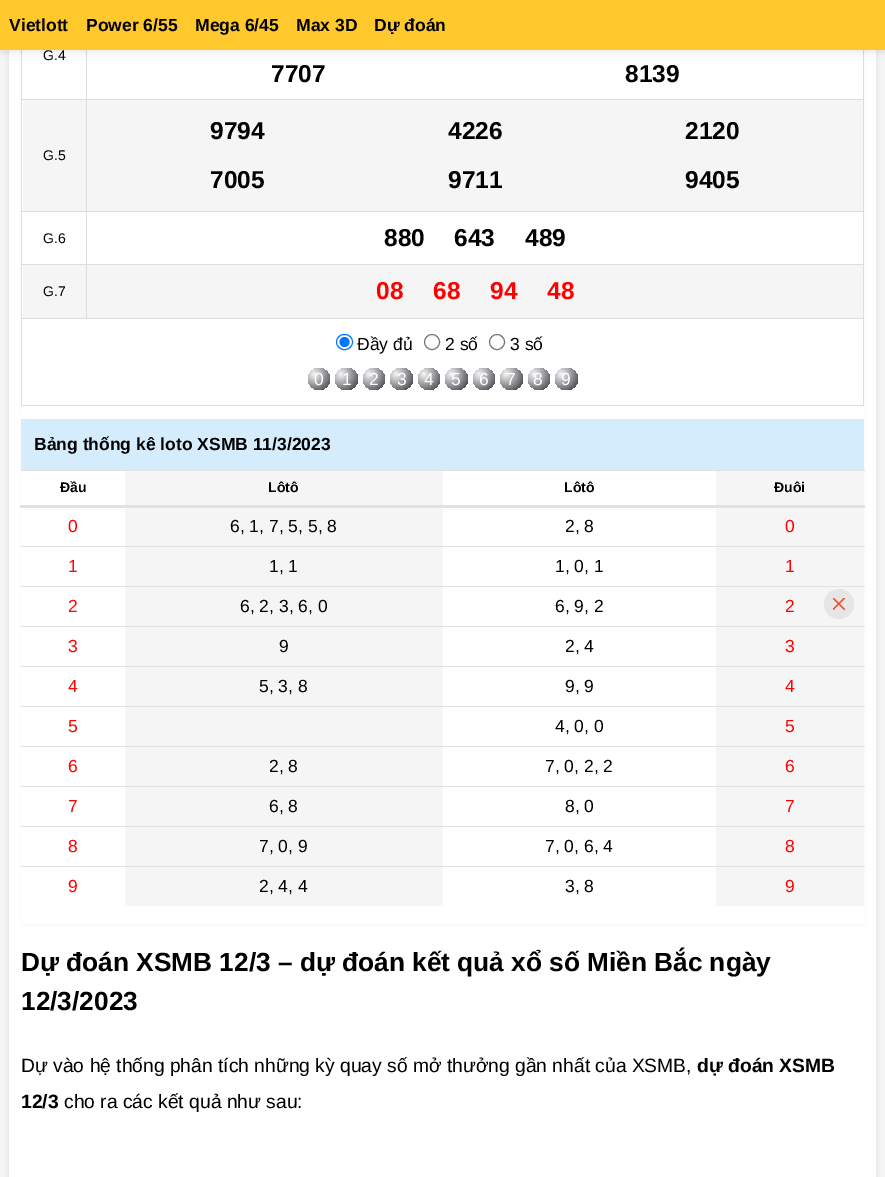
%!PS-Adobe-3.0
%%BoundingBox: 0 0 885 1177
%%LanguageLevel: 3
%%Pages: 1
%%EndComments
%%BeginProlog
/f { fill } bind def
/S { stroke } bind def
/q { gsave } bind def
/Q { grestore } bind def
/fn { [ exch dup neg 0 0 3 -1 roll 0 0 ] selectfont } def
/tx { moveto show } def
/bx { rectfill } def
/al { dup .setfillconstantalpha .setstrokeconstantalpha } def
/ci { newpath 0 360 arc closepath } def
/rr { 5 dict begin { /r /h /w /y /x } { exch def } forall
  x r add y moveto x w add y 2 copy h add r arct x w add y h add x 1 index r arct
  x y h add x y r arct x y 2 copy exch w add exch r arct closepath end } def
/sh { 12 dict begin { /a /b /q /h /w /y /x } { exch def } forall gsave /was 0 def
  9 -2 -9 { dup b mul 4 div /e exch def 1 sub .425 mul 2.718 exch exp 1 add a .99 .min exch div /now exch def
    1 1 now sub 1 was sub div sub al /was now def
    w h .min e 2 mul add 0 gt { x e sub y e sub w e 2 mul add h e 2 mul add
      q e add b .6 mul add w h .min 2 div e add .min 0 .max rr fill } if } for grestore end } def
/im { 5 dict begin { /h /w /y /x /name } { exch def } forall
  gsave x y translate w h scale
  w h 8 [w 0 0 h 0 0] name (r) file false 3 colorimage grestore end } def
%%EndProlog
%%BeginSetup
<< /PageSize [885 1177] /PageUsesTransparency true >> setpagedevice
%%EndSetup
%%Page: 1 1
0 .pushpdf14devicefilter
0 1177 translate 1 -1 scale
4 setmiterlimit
0.961 setgray
0 0 885 1177 bx
0.129 0.118 0.118 setrgbcolor
9 -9 867 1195 0 3 0.1 sh
1 setgray
9 50 867 1127 bx
0 setgray
21 -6 843 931 0 2 0.04 sh
1 setgray
21 50 843 874 bx
0.867 setgray
86 99 778 1 bx
0.961 setgray
23 100 840 111 bx
0.867 setgray
86 211 778 1 bx
86 264 778 1 bx
0.961 setgray
23 265 840 53 bx
0.867 setgray
863 264 1 142 bx
86 318 778 1 bx
86 264 1 55 bx
21 264 67 1 bx
86 211 1 54 bx
21 211 67 1 bx
86 99 1 114 bx
21 99 67 1 bx
86 50 1 50 bx
21 318 67 1 bx
21 264 1 55 bx
21 211 1 54 bx
21 50 1 163 bx
863 211 1 54 bx
863 50 1 163 bx
0 setgray
0 3 885 50 0 3 0.07 sh
1 0.788 0.176 setrgbcolor
0 0 885 50 bx
/LiberationSans-Bold 17.5 fn
0 setgray
(Vietlott) 9 31 tx
(Power 6/55) 86 31 tx
(Mega 6/45) 195 31 tx
(Max 3D) 296 31 tx
(Dự đoán) 374 31 tx
/LiberationSans-Regular 14 fn
(G.4) 43 60 tx
/LiberationSans-Bold 24.5 fn
(7707) 271 82 tx
(8139) 625 82 tx
/LiberationSans-Regular 14 fn
(G.5) 43 160 tx
/LiberationSans-Bold 24.5 fn
(9794) 210 139 tx
(4226) 448 139 tx
(2120) 685 139 tx
(7005) 210 188 tx
(9711) 448 188 tx
(9405) 685 188 tx
/LiberationSans-Regular 14 fn
(G.6) 43 243 tx
/LiberationSans-Bold 24.5 fn
(880) 384 246 tx
(643) 454 246 tx
(489) 525 246 tx
/LiberationSans-Regular 14 fn
(G.7) 43 296 tx
/LiberationSans-Bold 24.5 fn
1 0 0 setrgbcolor
(08) 376 299 tx
(68) 433 299 tx
(94) 490 299 tx
(48) 547 299 tx
0.867 setgray
21 405 843 1 bx
21 319 1 87 bx
0 0.459 1 setrgbcolor
336.5 334.5 16 15 7.5 rr S
344.5 342 5 ci f
/LiberationSans-Regular 17.5 fn
0 setgray
(Đầy đủ) 357 350 tx
0.463 setgray
432 342 7.5 ci S
0 setgray
(2 số) 445 350 tx
0.463 setgray
497 342 7.5 ci S
0 setgray
(3 số) 510 350 tx
q 319 379 11 ci clip newpath 314 374 translate 23 23 scale
<< /ShadingType 3 /ColorSpace /DeviceRGB /Coords [0 0 0 0 0 1] /Extend [true true] /Function << /FunctionType 2 /Domain [0 1] /C0 [0.969 0.961 0.961] /C1 [0.192 0.192 0.227] /N 1 >> >> shfill Q
1 setgray
(0) 314 385 tx
q 335 368 23 22 11 rr clip newpath 341 374 translate 23 23 scale
<< /ShadingType 3 /ColorSpace /DeviceRGB /Coords [0 0 0 0 0 1] /Extend [true true] /Function << /FunctionType 2 /Domain [0 1] /C0 [0.969 0.961 0.961] /C1 [0.192 0.192 0.227] /N 1 >> >> shfill Q
(1) 342 385 tx
q 374 379 11 ci clip newpath 369 374 translate 23 23 scale
<< /ShadingType 3 /ColorSpace /DeviceRGB /Coords [0 0 0 0 0 1] /Extend [true true] /Function << /FunctionType 2 /Domain [0 1] /C0 [0.969 0.961 0.961] /C1 [0.192 0.192 0.227] /N 1 >> >> shfill Q
(2) 369 385 tx
q 390 368 23 22 11 rr clip newpath 396 374 translate 23 23 scale
<< /ShadingType 3 /ColorSpace /DeviceRGB /Coords [0 0 0 0 0 1] /Extend [true true] /Function << /FunctionType 2 /Domain [0 1] /C0 [0.969 0.961 0.961] /C1 [0.192 0.192 0.227] /N 1 >> >> shfill Q
(3) 397 385 tx
q 429 379 11 ci clip newpath 424 374 translate 23 23 scale
<< /ShadingType 3 /ColorSpace /DeviceRGB /Coords [0 0 0 0 0 1] /Extend [true true] /Function << /FunctionType 2 /Domain [0 1] /C0 [0.969 0.961 0.961] /C1 [0.192 0.192 0.227] /N 1 >> >> shfill Q
(4) 424 385 tx
q 445 368 23 22 11 rr clip newpath 451 374 translate 23 23 scale
<< /ShadingType 3 /ColorSpace /DeviceRGB /Coords [0 0 0 0 0 1] /Extend [true true] /Function << /FunctionType 2 /Domain [0 1] /C0 [0.969 0.961 0.961] /C1 [0.192 0.192 0.227] /N 1 >> >> shfill Q
(5) 451 385 tx
q 484 379 11 ci clip newpath 479 374 translate 23 23 scale
<< /ShadingType 3 /ColorSpace /DeviceRGB /Coords [0 0 0 0 0 1] /Extend [true true] /Function << /FunctionType 2 /Domain [0 1] /C0 [0.969 0.961 0.961] /C1 [0.192 0.192 0.227] /N 1 >> >> shfill Q
(6) 479 385 tx
q 500 368 23 22 11 rr clip newpath 506 374 translate 23 23 scale
<< /ShadingType 3 /ColorSpace /DeviceRGB /Coords [0 0 0 0 0 1] /Extend [true true] /Function << /FunctionType 2 /Domain [0 1] /C0 [0.969 0.961 0.961] /C1 [0.192 0.192 0.227] /N 1 >> >> shfill Q
(7) 506 385 tx
q 539 379 11 ci clip newpath 534 374 translate 23 23 scale
<< /ShadingType 3 /ColorSpace /DeviceRGB /Coords [0 0 0 0 0 1] /Extend [true true] /Function << /FunctionType 2 /Domain [0 1] /C0 [0.969 0.961 0.961] /C1 [0.192 0.192 0.227] /N 1 >> >> shfill Q
(8) 533 385 tx
q 555 368 23 22 11 rr clip newpath 561 374 translate 23 23 scale
<< /ShadingType 3 /ColorSpace /DeviceRGB /Coords [0 0 0 0 0 1] /Extend [true true] /Function << /FunctionType 2 /Domain [0 1] /C0 [0.969 0.961 0.961] /C1 [0.192 0.192 0.227] /N 1 >> >> shfill Q
(9) 561 385 tx
0.835 0.925 0.992 setrgbcolor
21 419 843 51 bx
/LiberationSans-Bold 17.5 fn
0 setgray
(Bảng thống kê loto XSMB 11/3/2023) 34 450 tx
/LiberationSans-Bold 14 fn
(Đầu) 60 492 tx
0.961 setgray
125 471 318 34 bx
0.871 0.886 0.902 setrgbcolor
21 470 423 1 bx
20 505 424 3 bx
0 setgray
(Lôtô) 268 492 tx
/LiberationSans-Regular 17.5 fn
1 0 0 setrgbcolor
(0) 68 532 tx
0.961 setgray
125 508 318 38 bx
0 setgray
(6, 1, 7, 5, 5, 8) 230 532 tx
1 0 0 setrgbcolor
(1) 68 572 tx
0.961 setgray
125 547 318 39 bx
0.871 0.886 0.902 setrgbcolor
21 546 423 1 bx
0 setgray
(1, 1) 269 572 tx
1 0 0 setrgbcolor
(2) 68 612 tx
0.961 setgray
125 587 318 39 bx
0.871 0.886 0.902 setrgbcolor
21 586 423 1 bx
0 setgray
(6, 2, 3, 6, 0) 240 612 tx
1 0 0 setrgbcolor
(3) 68 652 tx
0.961 setgray
125 627 318 39 bx
0.871 0.886 0.902 setrgbcolor
21 626 423 1 bx
0 setgray
(9) 279 652 tx
1 0 0 setrgbcolor
(4) 68 692 tx
0.961 setgray
125 667 318 39 bx
0.871 0.886 0.902 setrgbcolor
21 666 423 1 bx
0 setgray
(5, 3, 8) 259 692 tx
0.961 setgray
125 707 318 39 bx
0.871 0.886 0.902 setrgbcolor
21 706 423 1 bx
1 0 0 setrgbcolor
(5) 68 732 tx
(6) 68 772 tx
0.961 setgray
125 747 318 39 bx
0.871 0.886 0.902 setrgbcolor
21 746 423 1 bx
0 setgray
(2, 8) 269 772 tx
1 0 0 setrgbcolor
(7) 68 812 tx
0.961 setgray
125 787 318 39 bx
0.871 0.886 0.902 setrgbcolor
21 786 423 1 bx
0 setgray
(6, 8) 269 812 tx
1 0 0 setrgbcolor
(8) 68 852 tx
0.961 setgray
125 827 318 39 bx
0.871 0.886 0.902 setrgbcolor
21 826 423 1 bx
0 setgray
(7, 0, 9) 259 852 tx
1 0 0 setrgbcolor
(9) 68 892 tx
0.961 setgray
125 867 318 39 bx
0.871 0.886 0.902 setrgbcolor
21 866 423 1 bx
0 setgray
(2, 4, 4) 259 892 tx
/LiberationSans-Bold 14 fn
(Lôtô) 564 492 tx
0.961 setgray
716 471 148 34 bx
0.871 0.886 0.902 setrgbcolor
443 470 422 1 bx
441 505 424 3 bx
0 setgray
(Đuôi) 774 492 tx
/LiberationSans-Regular 17.5 fn
(2, 8) 565 532 tx
0.961 setgray
716 508 148 38 bx
1 0 0 setrgbcolor
(0) 785 532 tx
0 setgray
(1, 0, 1) 555 572 tx
0.961 setgray
716 547 148 39 bx
0.871 0.886 0.902 setrgbcolor
443 546 422 1 bx
1 0 0 setrgbcolor
(1) 785 572 tx
0 setgray
(6, 9, 2) 555 612 tx
0.961 setgray
716 587 148 39 bx
0.871 0.886 0.902 setrgbcolor
443 586 422 1 bx
1 0 0 setrgbcolor
(2) 785 612 tx
0 setgray
(2, 4) 565 652 tx
0.961 setgray
716 627 148 39 bx
0.871 0.886 0.902 setrgbcolor
443 626 422 1 bx
1 0 0 setrgbcolor
(3) 785 652 tx
0 setgray
(9, 9) 565 692 tx
0.961 setgray
716 667 148 39 bx
0.871 0.886 0.902 setrgbcolor
443 666 422 1 bx
1 0 0 setrgbcolor
(4) 785 692 tx
0 setgray
(4, 0, 0) 555 732 tx
0.961 setgray
716 707 148 39 bx
0.871 0.886 0.902 setrgbcolor
443 706 422 1 bx
1 0 0 setrgbcolor
(5) 785 732 tx
0 setgray
(7, 0, 2, 2) 545 772 tx
0.961 setgray
716 747 148 39 bx
0.871 0.886 0.902 setrgbcolor
443 746 422 1 bx
1 0 0 setrgbcolor
(6) 785 772 tx
0 setgray
(8, 0) 565 812 tx
0.961 setgray
716 787 148 39 bx
0.871 0.886 0.902 setrgbcolor
443 786 422 1 bx
1 0 0 setrgbcolor
(7) 785 812 tx
0 setgray
(7, 0, 6, 4) 545 852 tx
0.961 setgray
716 827 148 39 bx
0.871 0.886 0.902 setrgbcolor
443 826 422 1 bx
1 0 0 setrgbcolor
(8) 785 852 tx
0 setgray
(3, 8) 565 892 tx
0.961 setgray
716 867 148 39 bx
0.871 0.886 0.902 setrgbcolor
443 866 422 1 bx
1 0 0 setrgbcolor
(9) 785 892 tx
/LiberationSans-Bold 26.25 fn
0 setgray
(Dự đoán XSMB 12/3 – dự đoán kết quả xổ số Miền Bắc ngày) 21 971 tx
(12/3/2023) 21 1010 tx
/LiberationSans-Regular 19.25 fn
(Dự vào hệ thống phân tích những kỳ quay số mở thưởng gần nhất của XSMB,) 21 1072 tx
/LiberationSans-Bold 19.25 fn
(dự đoán XSMB) 697 1072 tx
(12/3) 21 1108 tx
/LiberationSans-Regular 19.25 fn
(cho ra các kết quả như sau:) 64 1108 tx
0.902 setgray
839 604 15 ci f
(image0.raw) 833 598 12 12 im
.poppdf14devicefilter showpage
%%EOF
